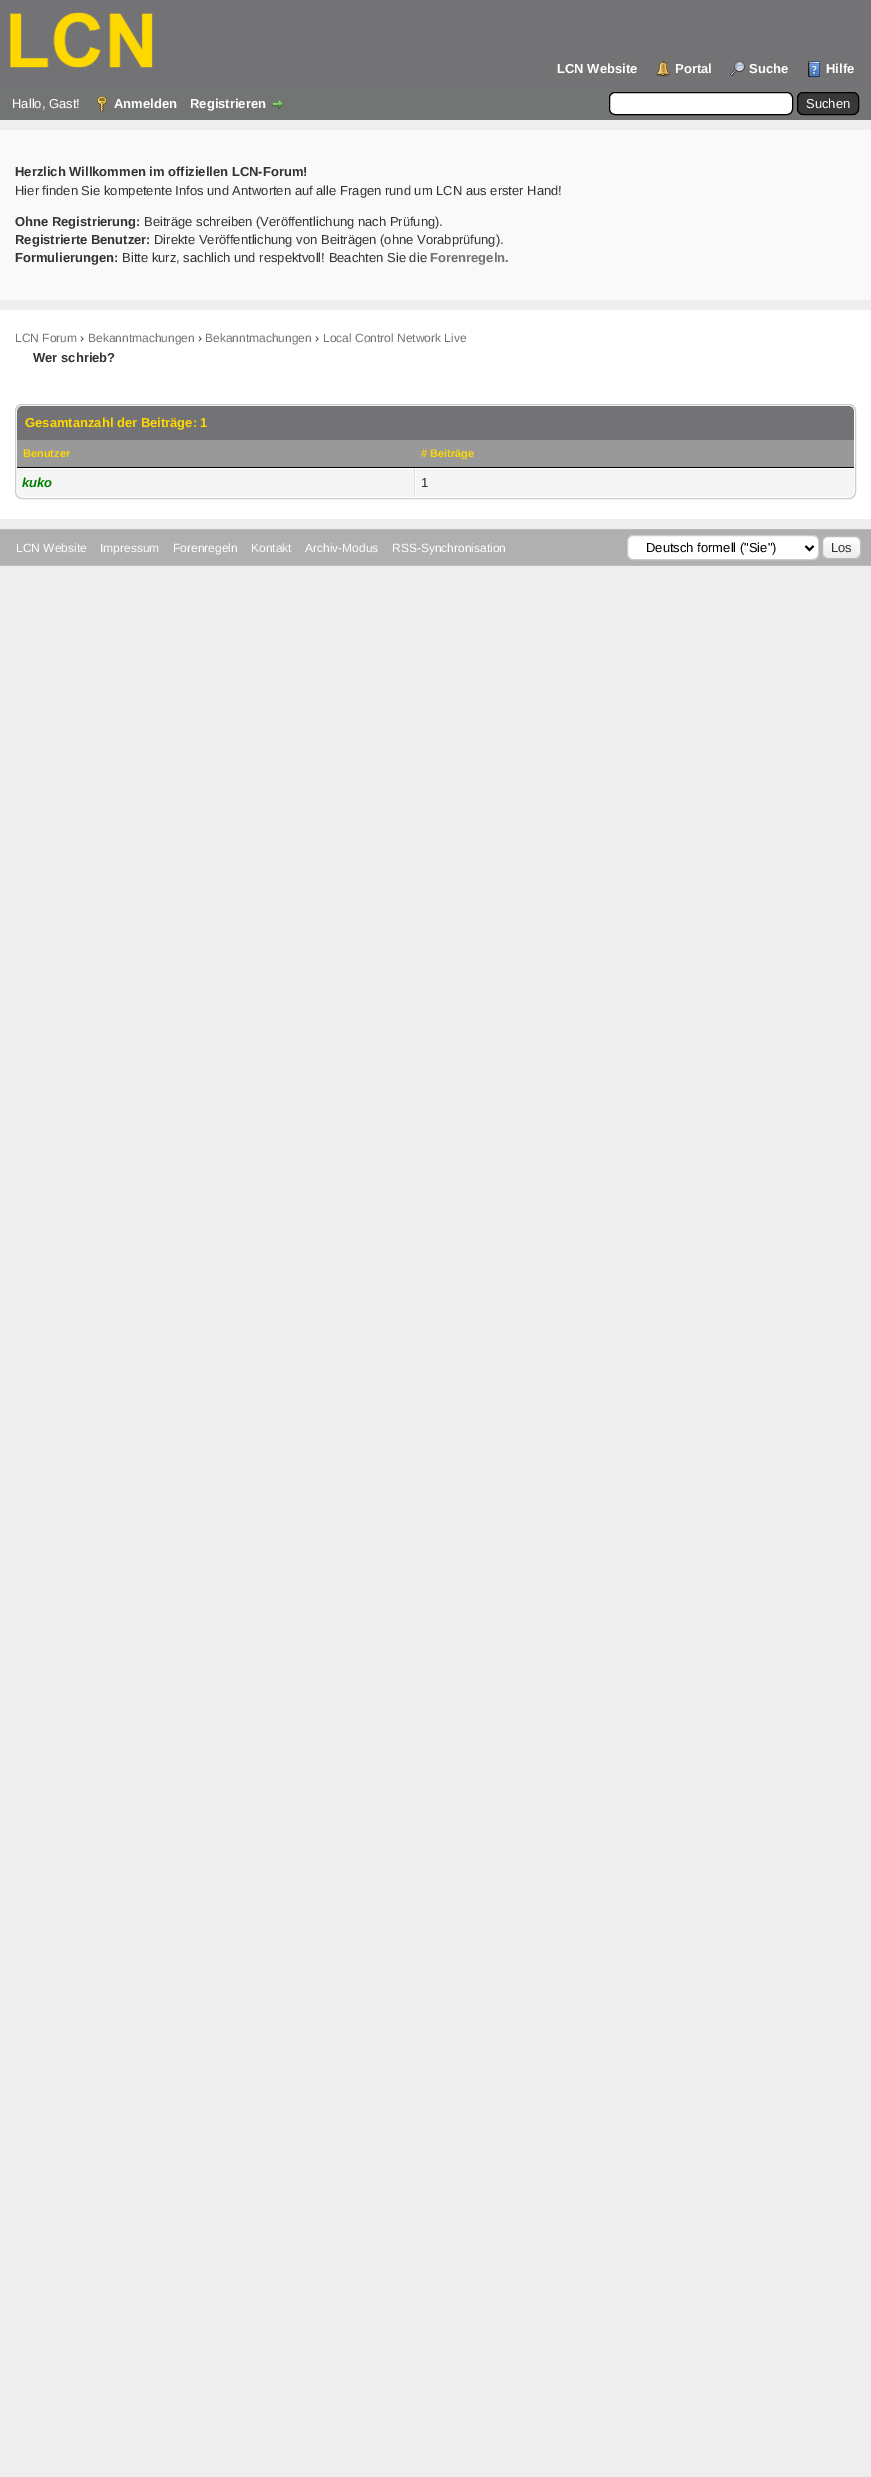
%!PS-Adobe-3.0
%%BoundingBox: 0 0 871 2477
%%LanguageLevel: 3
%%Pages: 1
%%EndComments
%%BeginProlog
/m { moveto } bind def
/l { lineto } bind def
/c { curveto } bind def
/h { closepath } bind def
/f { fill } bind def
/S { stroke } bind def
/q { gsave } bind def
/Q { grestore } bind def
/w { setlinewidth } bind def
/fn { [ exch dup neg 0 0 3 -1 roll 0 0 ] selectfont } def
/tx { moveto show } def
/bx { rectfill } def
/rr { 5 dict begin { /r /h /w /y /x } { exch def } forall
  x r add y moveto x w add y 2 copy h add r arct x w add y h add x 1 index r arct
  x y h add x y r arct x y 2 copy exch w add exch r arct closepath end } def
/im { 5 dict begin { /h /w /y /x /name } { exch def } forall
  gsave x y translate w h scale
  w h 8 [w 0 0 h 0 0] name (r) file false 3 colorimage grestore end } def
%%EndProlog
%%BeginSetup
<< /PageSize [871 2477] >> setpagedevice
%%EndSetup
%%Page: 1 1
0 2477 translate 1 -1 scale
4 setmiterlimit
0.933 setgray
0 0 871 2477 bx
0.451 0.451 0.459 setrgbcolor
0 0 871 88 bx
(image0.raw) 10 12 143 56 im
/LiberationSans-Bold 13 fn
1 setgray
(LCN Website) 557 73 tx
(image1.raw) 656 61 14 16 im
(Portal) 675 73 tx
(image2.raw) 730 61 15 15 im
(Suche) 749 73 tx
(image3.raw) 808 61 12 16 im
(Hilfe) 826 73 tx
0.451 0.459 0.459 setrgbcolor
0 88 871 32 bx
/LiberationSans-Regular 13 fn
1 setgray
(Hallo, Gast!) 12 108 tx
(image4.raw) 97 96 10 15 im
/LiberationSans-Bold 13 fn
(Anmelden) 114 108 tx
(Registrieren) 190 108 tx
(image5.raw) 272 99 12 10 im
609.5 92.5 183 22 5.5 rr q f Q
0 setgray
S
0.22 setgray
797.5 92.5 61 22 5.5 rr q f Q
0 setgray
S
/LiberationSans-Regular 13 fn
1 setgray
(Suchen) 806 108 tx
0.976 setgray
0 130 871 170 bx
/LiberationSans-Bold 13 fn
0.2 setgray
(Herzlich Willkommen im offiziellen LCN-Forum!) 15 176 tx
/LiberationSans-Regular 13 fn
(Hier finden Sie kompetente Infos und Antworten auf alle Fragen rund um LCN aus erster Hand!) 15 195 tx
/LiberationSans-Bold 13 fn
(Ohne Registrierung:) 15 226 tx
/LiberationSans-Regular 13 fn
(Beiträge schreiben \(Veröffentlichung nach Prüfung\).) 144 226 tx
/LiberationSans-Bold 13 fn
(Registrierte Benutzer:) 15 244 tx
/LiberationSans-Regular 13 fn
(Direkte Veröffentlichung von Beiträgen \(ohne Vorabprüfung\).) 154 244 tx
/LiberationSans-Bold 13 fn
(Formulierungen:) 15 262 tx
/LiberationSans-Regular 13 fn
(Bitte kurz, sachlich und respektvoll! Beachten Sie die) 122 262 tx
/LiberationSans-Bold 13 fn
0.451 0.451 0.459 setrgbcolor
(Forenregeln.) 430 262 tx
1 setgray
0 310 871 209 bx
/LiberationSans-Regular 12 fn
0.451 0.451 0.459 setrgbcolor
(LCN Forum) 15 342 tx
0.2 setgray
(›) 80 342 tx
0.451 0.451 0.459 setrgbcolor
(Bekanntmachungen) 88 342 tx
0.2 setgray
(›) 198 342 tx
0.451 0.451 0.459 setrgbcolor
(Bekanntmachungen) 205 342 tx
0.2 setgray
(›) 315 342 tx
0.451 0.451 0.459 setrgbcolor
(Local Control Network Live) 323 342 tx
/LiberationSans-Bold 13 fn
0.2 setgray
(Wer schrieb?) 33 362 tx
0.8 setgray
15.5 404.5 840 94 6.5 rr S
0.451 0.451 0.459 setrgbcolor
23 406 m 848 406 l 851.5 406 854 408.5 854 412 c 854 440 l 17 440 l 17 412 l 17 408.5 19.5 406 23 406 c h f
1 0.847 0 setrgbcolor
(Gesamtanzahl der Beiträge: 1) 25 427 tx
0.6 setgray
17 440 837 27 bx
0 setgray
17 467 837 1 bx
/LiberationSans-Bold 11 fn
1 0.847 0 setrgbcolor
(Benutzer) 23 457 tx
(# Beiträge) 421 457 tx
0.961 setgray
17 468 m 415 468 l 415 497 l 23 497 l 19.5 497 17 494.5 17 491 c h f
1 setgray
17 468 m 17 469 l 414 469 l 415 468 l h f
0.867 setgray
415 468 m 414 469 l 414 497 l 415 497 l h f
/LiberationSans-BoldItalic 13 fn
0 0.502 0 setrgbcolor
(kuko) 22 487 tx
0.961 setgray
415 468 m 854 468 l 854 491 l 854 494.5 851.5 497 848 497 c 415 497 l h f
1 setgray
415 468 439 1 bx
415 468 1 29 bx
/LiberationSans-Regular 13 fn
0.2 setgray
(1) 421 487 tx
0.69 setgray
0 530 871 35 bx
0.733 setgray
0 529 871 1 bx
0 565 871 1 bx
/LiberationSans-Regular 12 fn
1 setgray
(LCN Website) 16 552 tx
(Impressum) 100 552 tx
(Forenregeln) 173 552 tx
(Kontakt) 251 552 tx
(Archiv-Modus) 305 552 tx
(RSS-Synchronisation) 392 552 tx
627.5 535.5 191 24 5.5 rr q f Q
0.8 setgray
S
0 setgray
2 w
805.5 546 m 809.5 550 l 813.5 546 l S
/LiberationSans-Regular 13 fn
(Deutsch formell \("Sie"\)) 646 552 tx
(image6.raw) 822 537 39 22 im
0.733 setgray
1 w
822.5 536.5 38 22 5.5 rr S
0.2 setgray
(Los) 831 552 tx
showpage
%%EOF
